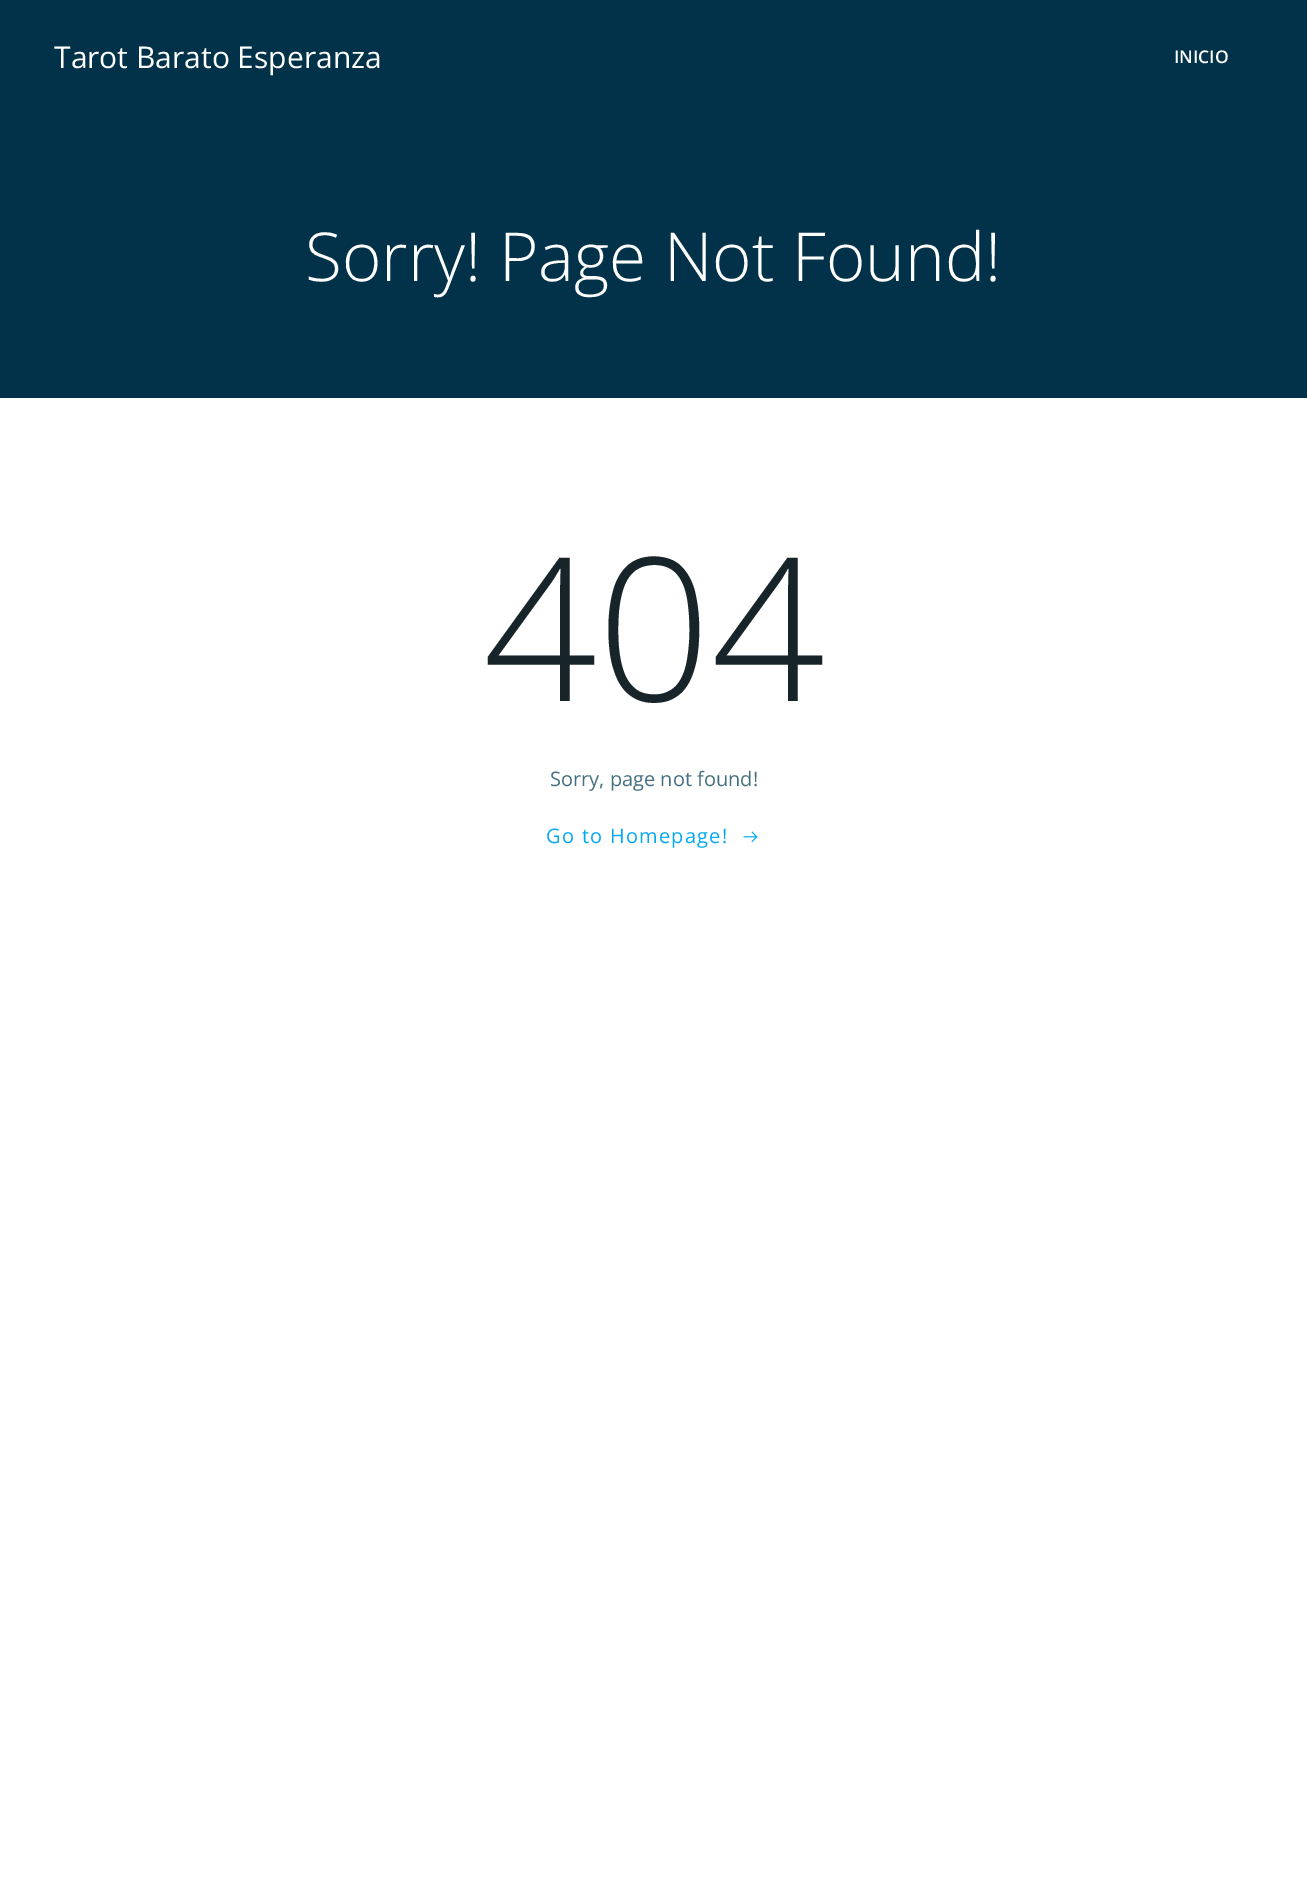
%!PS-Adobe-3.0
%%BoundingBox: 0 0 1307 1889
%%LanguageLevel: 3
%%Pages: 1
%%EndComments
%%BeginProlog
/m { moveto } bind def
/fn { [ exch dup neg 0 0 3 -1 roll 0 0 ] selectfont } def
/tx { moveto show } def
/bx { rectfill } def
/im { 5 dict begin { /h /w /y /x /name } { exch def } forall
  gsave x y translate w h scale
  w h 8 [w 0 0 h 0 0] name (r) file false 3 colorimage grestore end } def
%%EndProlog
%%BeginSetup
<< /PageSize [1307 1889] >> setpagedevice
%%EndSetup
%%Page: 1 1
0 1889 translate 1 -1 scale
4 setmiterlimit
1 setgray
0 0 1307 1889 bx
0.004 0.196 0.286 setrgbcolor
0 0 1307 398 bx
/OpenSans-Regular 30 fn
1 setgray
(Tarot Barato Esperanza) 54 68 tx
/OpenSans-SemiBold 17.5 fn
(INICIO) 1174 63 tx
/OpenSans-Light 67.5 fn
(Sorry! Page Not Found!) 305 281 tx
/OpenSans-Light 200 fn
0.09 0.145 0.165 setrgbcolor
(404) 483 701 tx
/OpenSans-Regular 20 fn
0.275 0.439 0.498 setrgbcolor
(Sorry, page not found!) 550 786 tx
0.012 0.663 0.957 setrgbcolor
546 843 m 1.25 0 (Go to Homepage!) ashow
(image0.raw) 743 831 15 12 im
showpage
%%EOF
